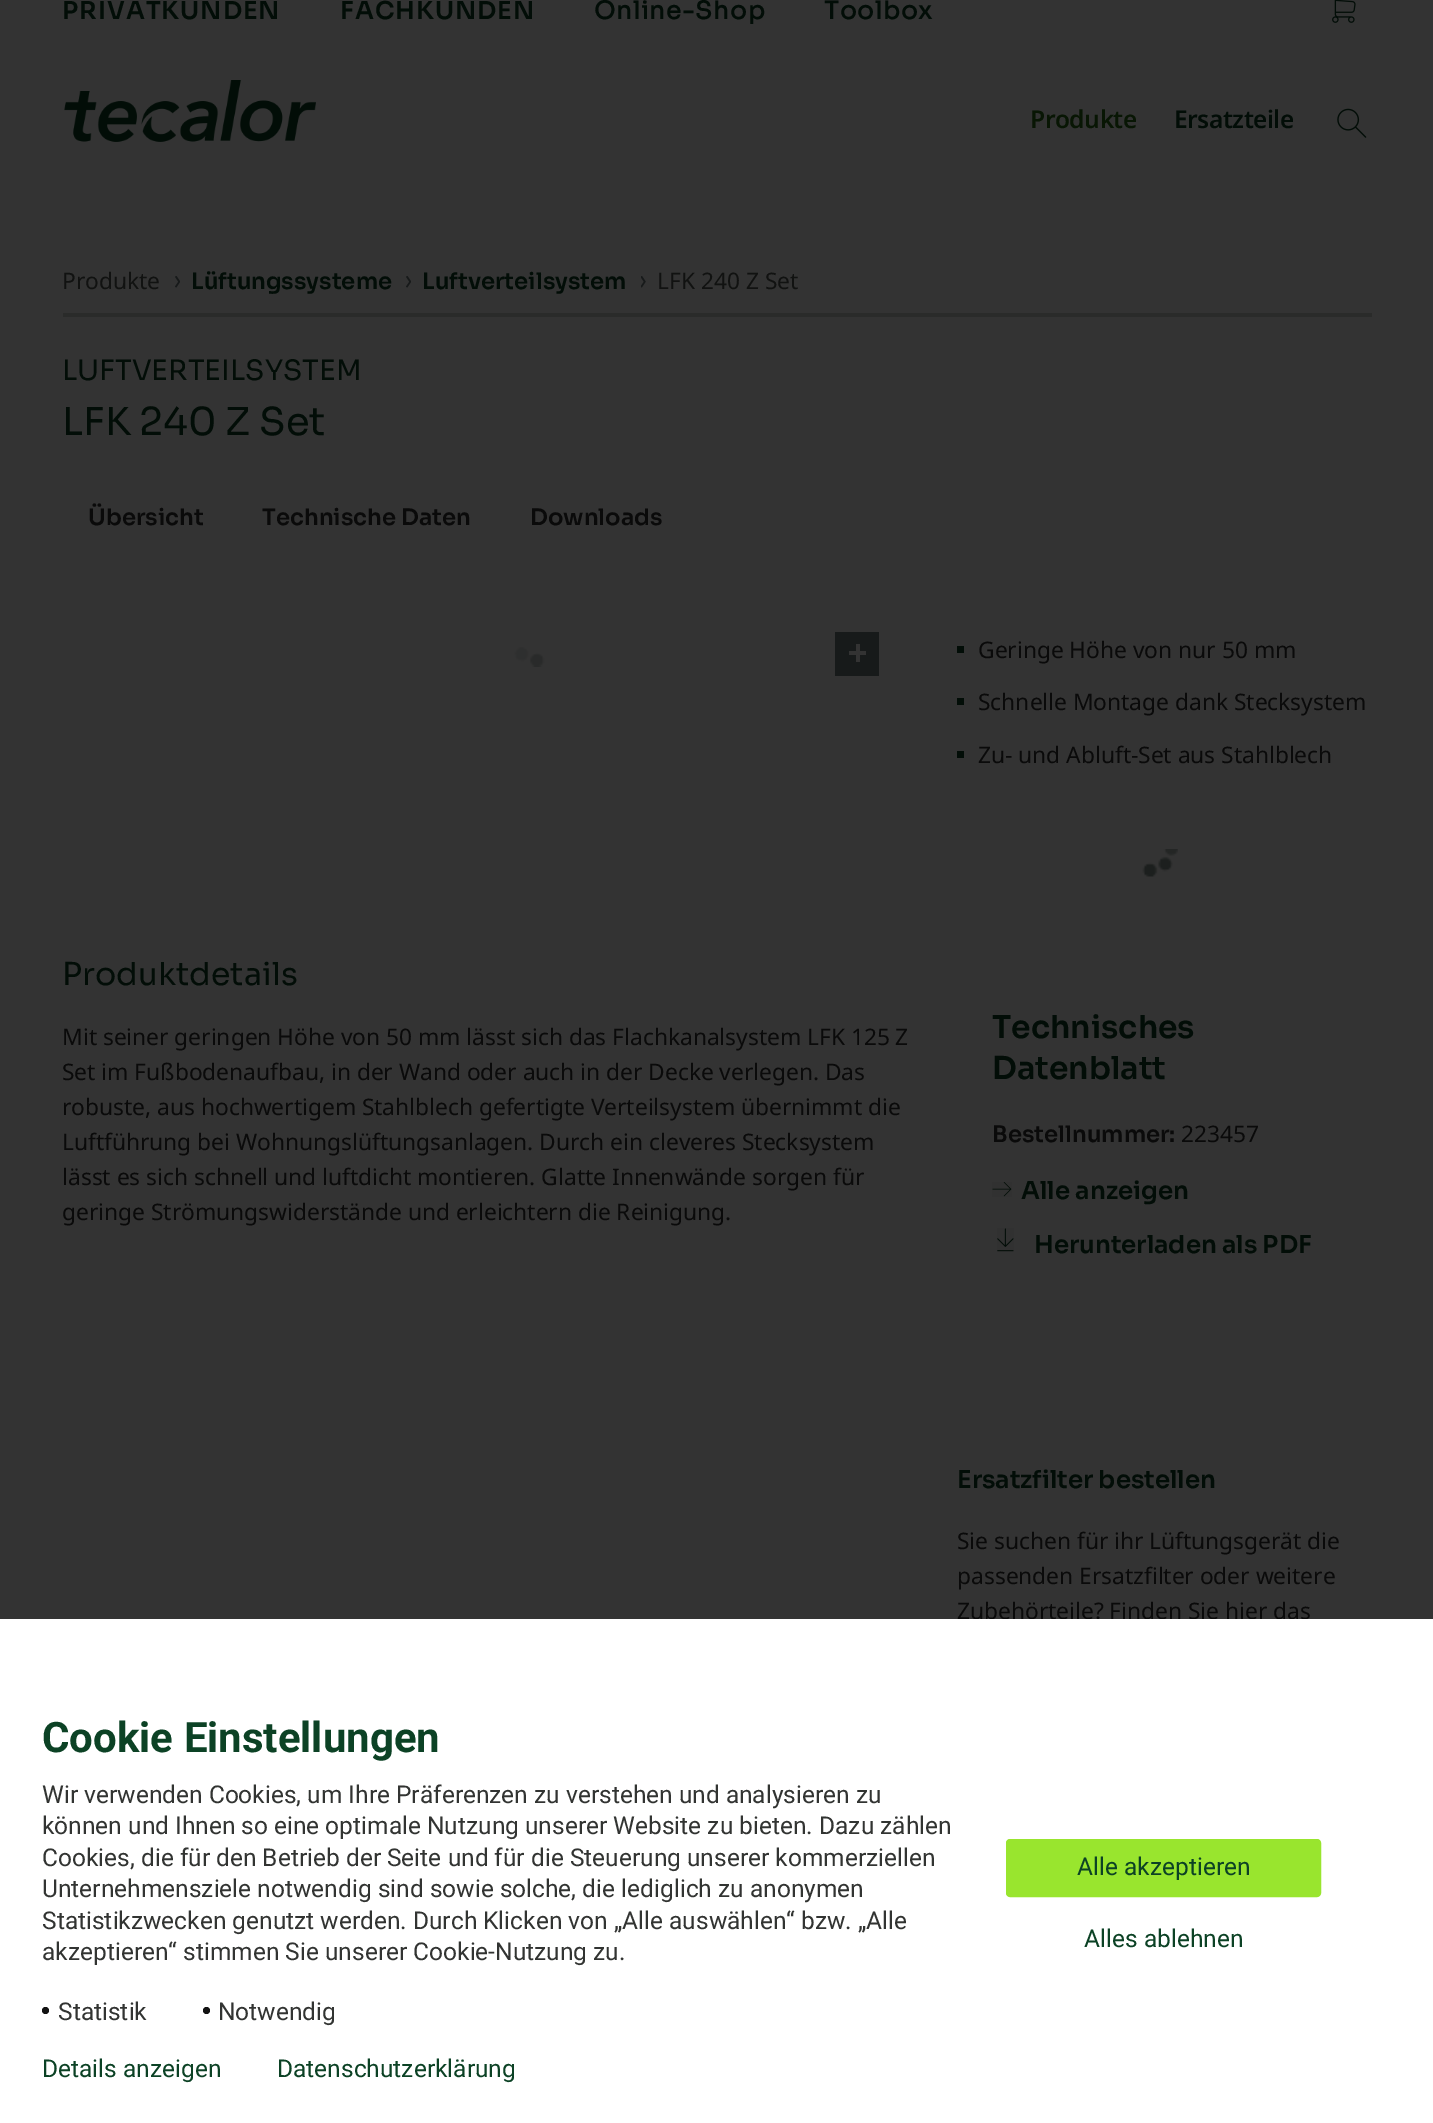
%!PS-Adobe-3.0
%%BoundingBox: 0 0 1433 2123
%%LanguageLevel: 3
%%Pages: 1
%%EndComments
%%BeginProlog
/m { moveto } bind def
/f { fill } bind def
/S { stroke } bind def
/q { gsave } bind def
/Q { grestore } bind def
/w { setlinewidth } bind def
/fn { [ exch dup neg 0 0 3 -1 roll 0 0 ] selectfont } def
/tx { moveto show } def
/bx { rectfill } def
/ci { newpath 0 360 arc closepath } def
/rr { 5 dict begin { /r /h /w /y /x } { exch def } forall
  x r add y moveto x w add y 2 copy h add r arct x w add y h add x 1 index r arct
  x y h add x y r arct x y 2 copy exch w add exch r arct closepath end } def
/im { 5 dict begin { /h /w /y /x /name } { exch def } forall
  gsave x y translate w h scale
  w h 8 [w 0 0 h 0 0] name (r) file false 3 colorimage grestore end } def
%%EndProlog
%%BeginSetup
<< /PageSize [1433 2123] >> setpagedevice
%%EndSetup
%%Page: 1 1
0 2123 translate 1 -1 scale
4 setmiterlimit
0.2 setgray
0 0 1433 2123 bx
/Sora-SemiBold 24.5 fn
0.008 0.051 0.027 setrgbcolor
62 19 m 1 0 (PRIVATKUNDEN) ashow
340 19 m 1 0 (FACHKUNDEN) ashow
/Sora-Bold 24.5 fn
594 19 m 1 0 (Online-Shop) ashow
824 19 m 1 0 (Toolbox) ashow
(image0.raw) 1332 0 24 23 im
(image1.raw) 64 80 252 62 im
/NotoSans-SemiBold 24.5 fn
0.031 0.086 0.016 setrgbcolor
1030 128 m -0.5 0 (Produkte) ashow
0.008 0.051 0.027 setrgbcolor
1174 128 m -0.5 0 (Ersatzteile) ashow
(image2.raw) 1337 108 30 30 im
/NotoSans-Regular 22.75 fn
0.067 0.071 0.067 setrgbcolor
(Produkte) 62 289 tx
(image3.raw) 175 276 5 12 im
/Sora-SemiBold 22.75 fn
0.008 0.051 0.027 setrgbcolor
(Lüftungssysteme) 191 289 tx
(image3.raw) 406 276 5 12 im
(Luftverteilsystem) 422 289 tx
(image4.raw) 641 276 5 12 im
/NotoSans-Regular 22.75 fn
0.067 0.071 0.067 setrgbcolor
(LFK 240 Z Set) 657 289 tx
0.165 0.169 0.165 setrgbcolor
63 313 1309 4 bx
/Sora-Regular 28 fn
0.008 0.051 0.027 setrgbcolor
(LUFTVERTEILSYSTEM) 62 380 tx
/Sora-Regular 38.5 fn
(LFK 240 Z Set) 62 435 tx
/Sora-SemiBold 22.75 fn
0.039 setgray
(Übersicht) 88 525 tx
(Technische Daten) 262 525 tx
(Downloads) 530 525 tx
(image5.raw) 514 647 31 20 im
0.09 0.102 0.102 setrgbcolor
835 632 44 44 bx
0.2 setgray
856 644 4 18 bx
849 651 17 4 bx
0.008 0.051 0.027 setrgbcolor
957 646 7 7 bx
/NotoSans-Regular 22.75 fn
0.039 setgray
(Geringe Höhe von nur 50 mm) 978 658 tx
0.008 0.051 0.027 setrgbcolor
957 698 7 7 bx
0.039 setgray
(Schnelle Montage dank Stecksystem) 978 710 tx
0.008 0.051 0.027 setrgbcolor
957 751 7 7 bx
0.039 setgray
(Zu- und Abluft-Set aus Stahlblech) 978 763 tx
(image6.raw) 1142 849 36 28 im
/Sora-Regular 31.5 fn
0.008 0.051 0.027 setrgbcolor
(Produktdetails) 62 985 tx
/NotoSans-Regular 22.75 fn
0.039 setgray
(Mit seiner geringen Höhe von 50 mm lässt sich das Flachkanalsystem LFK 125 Z) 62 1045 tx
(Set im Fußbodenaufbau, in der Wand oder auch in der Decke verlegen. Das) 62 1080 tx
(robuste, aus hochwertigem Stahlblech gefertigte Verteilsystem übernimmt die) 62 1115 tx
(Luftführung bei Wohnungslüftungsanlagen. Durch ein cleveres Stecksystem) 62 1150 tx
(lässt es sich schnell und luftdicht montieren. Glatte Innenwände sorgen für) 62 1185 tx
(geringe Strömungswiderstände und erleichtern die Reinigung.) 62 1220 tx
/Sora-SemiBold 31.5 fn
0.008 0.051 0.027 setrgbcolor
(Technisches) 992 1038 tx
(Datenblatt) 992 1079 tx
/Sora-SemiBold 22.75 fn
0.039 setgray
(Bestellnummer:) 992 1142 tx
/NotoSans-Regular 22.75 fn
(223457) 1181 1142 tx
(image7.raw) 992 1182 20 15 im
/Sora-SemiBold 24.5 fn
0.008 0.051 0.027 setrgbcolor
(Alle anzeigen) 1021 1199 tx
(image8.raw) 997 1228 17 24 im
(Herunterladen als PDF) 1034 1253 tx
(Ersatzfilter bestellen) 957 1488 tx
/NotoSans-Regular 22.75 fn
0.039 setgray
(Sie suchen für ihr Lüftungsgerät die) 957 1549 tx
(passenden Ersatzfilter oder weitere) 957 1584 tx
(Zubehörteile? Finden Sie hier das) 957 1619 tx
1 setgray
0 1619 1433 504 bx
/Roboto-Bold 42 fn
0.047 0.259 0.145 setrgbcolor
(Cookie Einstellungen) 42 1752 tx
/Roboto-Regular 24.5 fn
0.196 0.204 0.196 setrgbcolor
(Wir verwenden Cookies, um Ihre Präferenzen zu verstehen und analysieren zu) 42 1803 tx
(können und Ihnen so eine optimale Nutzung unserer Website zu bieten. Dazu zählen) 42 1834 tx
(Cookies, die für den Betrieb der Seite und für die Steuerung unserer kommerziellen) 42 1866 tx
(Unternehmensziele notwendig sind sowie solche, die lediglich zu anonymen) 42 1897 tx
(Statistikzwecken genutzt werden. Durch Klicken von „Alle auswählen“ bzw. „Alle) 42 1929 tx
(akzeptieren“ stimmen Sie unserer Cookie-Nutzung zu.) 42 1960 tx
0.075 setgray
45.5 2010.5 3.5 ci f
0.196 0.204 0.196 setrgbcolor
(Statistik) 58 2020 tx
0.075 setgray
206.5 2010.5 3.5 ci f
0.196 0.204 0.196 setrgbcolor
(Notwendig) 218 2020 tx
0.6 0.898 0.18 setrgbcolor
1007 1840 313 56 3 rr q f Q
2 w
S
0.047 0.259 0.145 setrgbcolor
(Alle akzeptieren) 1077 1875 tx
(Alles ablehnen) 1084 1947 tx
(Details anzeigen) 42 2077 tx
(Datenschutzerklärung) 277 2077 tx
showpage
%%EOF
